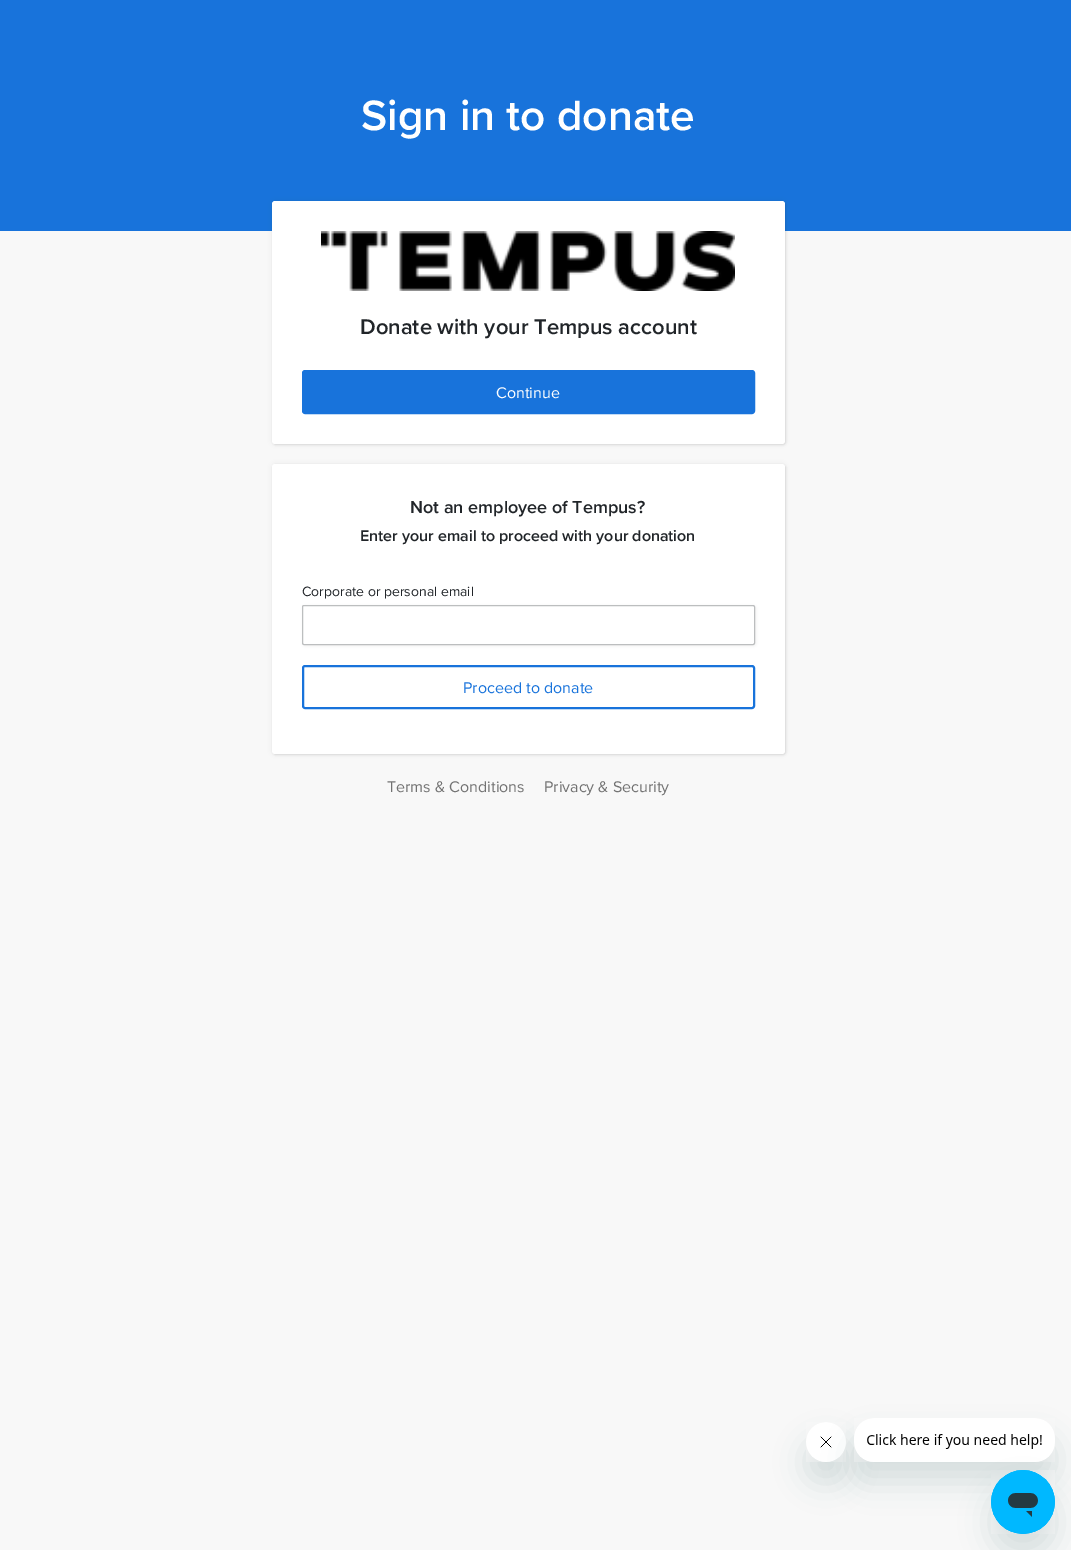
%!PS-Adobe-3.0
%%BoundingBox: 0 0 1071 1550
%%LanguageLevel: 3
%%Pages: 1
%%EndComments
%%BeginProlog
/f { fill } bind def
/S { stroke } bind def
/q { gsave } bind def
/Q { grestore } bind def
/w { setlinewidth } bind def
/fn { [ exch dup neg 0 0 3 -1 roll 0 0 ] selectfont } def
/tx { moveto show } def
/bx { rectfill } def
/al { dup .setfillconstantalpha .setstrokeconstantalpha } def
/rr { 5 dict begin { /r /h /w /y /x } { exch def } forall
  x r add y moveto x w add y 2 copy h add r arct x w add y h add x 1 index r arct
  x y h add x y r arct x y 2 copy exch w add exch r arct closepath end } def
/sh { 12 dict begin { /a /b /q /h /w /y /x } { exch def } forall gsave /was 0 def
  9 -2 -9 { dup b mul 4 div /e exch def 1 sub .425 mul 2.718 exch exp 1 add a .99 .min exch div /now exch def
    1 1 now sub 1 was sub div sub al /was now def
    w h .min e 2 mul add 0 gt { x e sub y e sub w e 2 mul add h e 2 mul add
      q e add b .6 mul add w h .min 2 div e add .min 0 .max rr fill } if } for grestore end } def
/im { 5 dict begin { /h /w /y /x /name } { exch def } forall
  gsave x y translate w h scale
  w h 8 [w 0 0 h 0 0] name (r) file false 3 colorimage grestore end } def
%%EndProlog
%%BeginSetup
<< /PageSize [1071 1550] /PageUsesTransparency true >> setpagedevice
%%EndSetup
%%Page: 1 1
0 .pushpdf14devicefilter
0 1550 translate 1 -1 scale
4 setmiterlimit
0.973 setgray
0 0 1071 1550 bx
0.094 0.451 0.859 setrgbcolor
0 0 1071 231 bx
/ProximaNova-SemiBold 44 fn
1 setgray
(Sign in to donate) 361 130 tx
0 setgray
272 201 513 243 3 3 0.05 sh
273 202 513 243 3 1 0.1 sh
1 setgray
272 201 513 243 3 rr f
(image0.raw) 321 231 414 60 im
/ProximaNova-SemiBold 22 fn
0.129 0.145 0.161 setrgbcolor
(Donate with your Tempus account) 360 334 tx
0.094 0.451 0.859 setrgbcolor
303 371 451 42 2 rr q f Q
2 w
S
/ProximaNova-Regular 16 fn
1 setgray
(Continue) 496 398 tx
0 setgray
272 464 513 290 3 3 0.05 sh
273 465 513 290 3 1 0.1 sh
1 setgray
272 464 513 290 3 rr f
/ProximaNova-SemiBold 18 fn
0.129 0.145 0.161 setrgbcolor
(Not an employee of Tempus?) 410 513 tx
/ProximaNova-SemiBold 16 fn
(Enter your email to proceed with your donation) 360 541 tx
/ProximaNova-Regular 14 fn
(Corporate or personal email) 302 596 tx
0 setgray
303 606 453 40 2 1.5 0.06 sh
1 setgray
302.5 605.5 452 39 1.5 rr q f Q
0.737 0.745 0.749 setrgbcolor
1 w
S
0.094 0.451 0.859 setrgbcolor
2 w
303 666 451 42 2 rr S
/ProximaNova-Regular 16 fn
(Proceed to donate) 463 693 tx
0.447 setgray
(Terms & Conditions) 387 792 tx
(Privacy & Security) 544 792 tx
0.09 0.286 0.302 setrgbcolor
806 1442 40 40 20 15 0.15 sh
(image2.raw) 806 1422 40 40 im
854 1438 201 44 20 15 0.15 sh
(image1.raw) 854 1418 201 44 im
991 1490 64 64 32 15 0.15 sh
(image3.raw) 991 1470 64 64 im
.poppdf14devicefilter showpage
%%EOF
